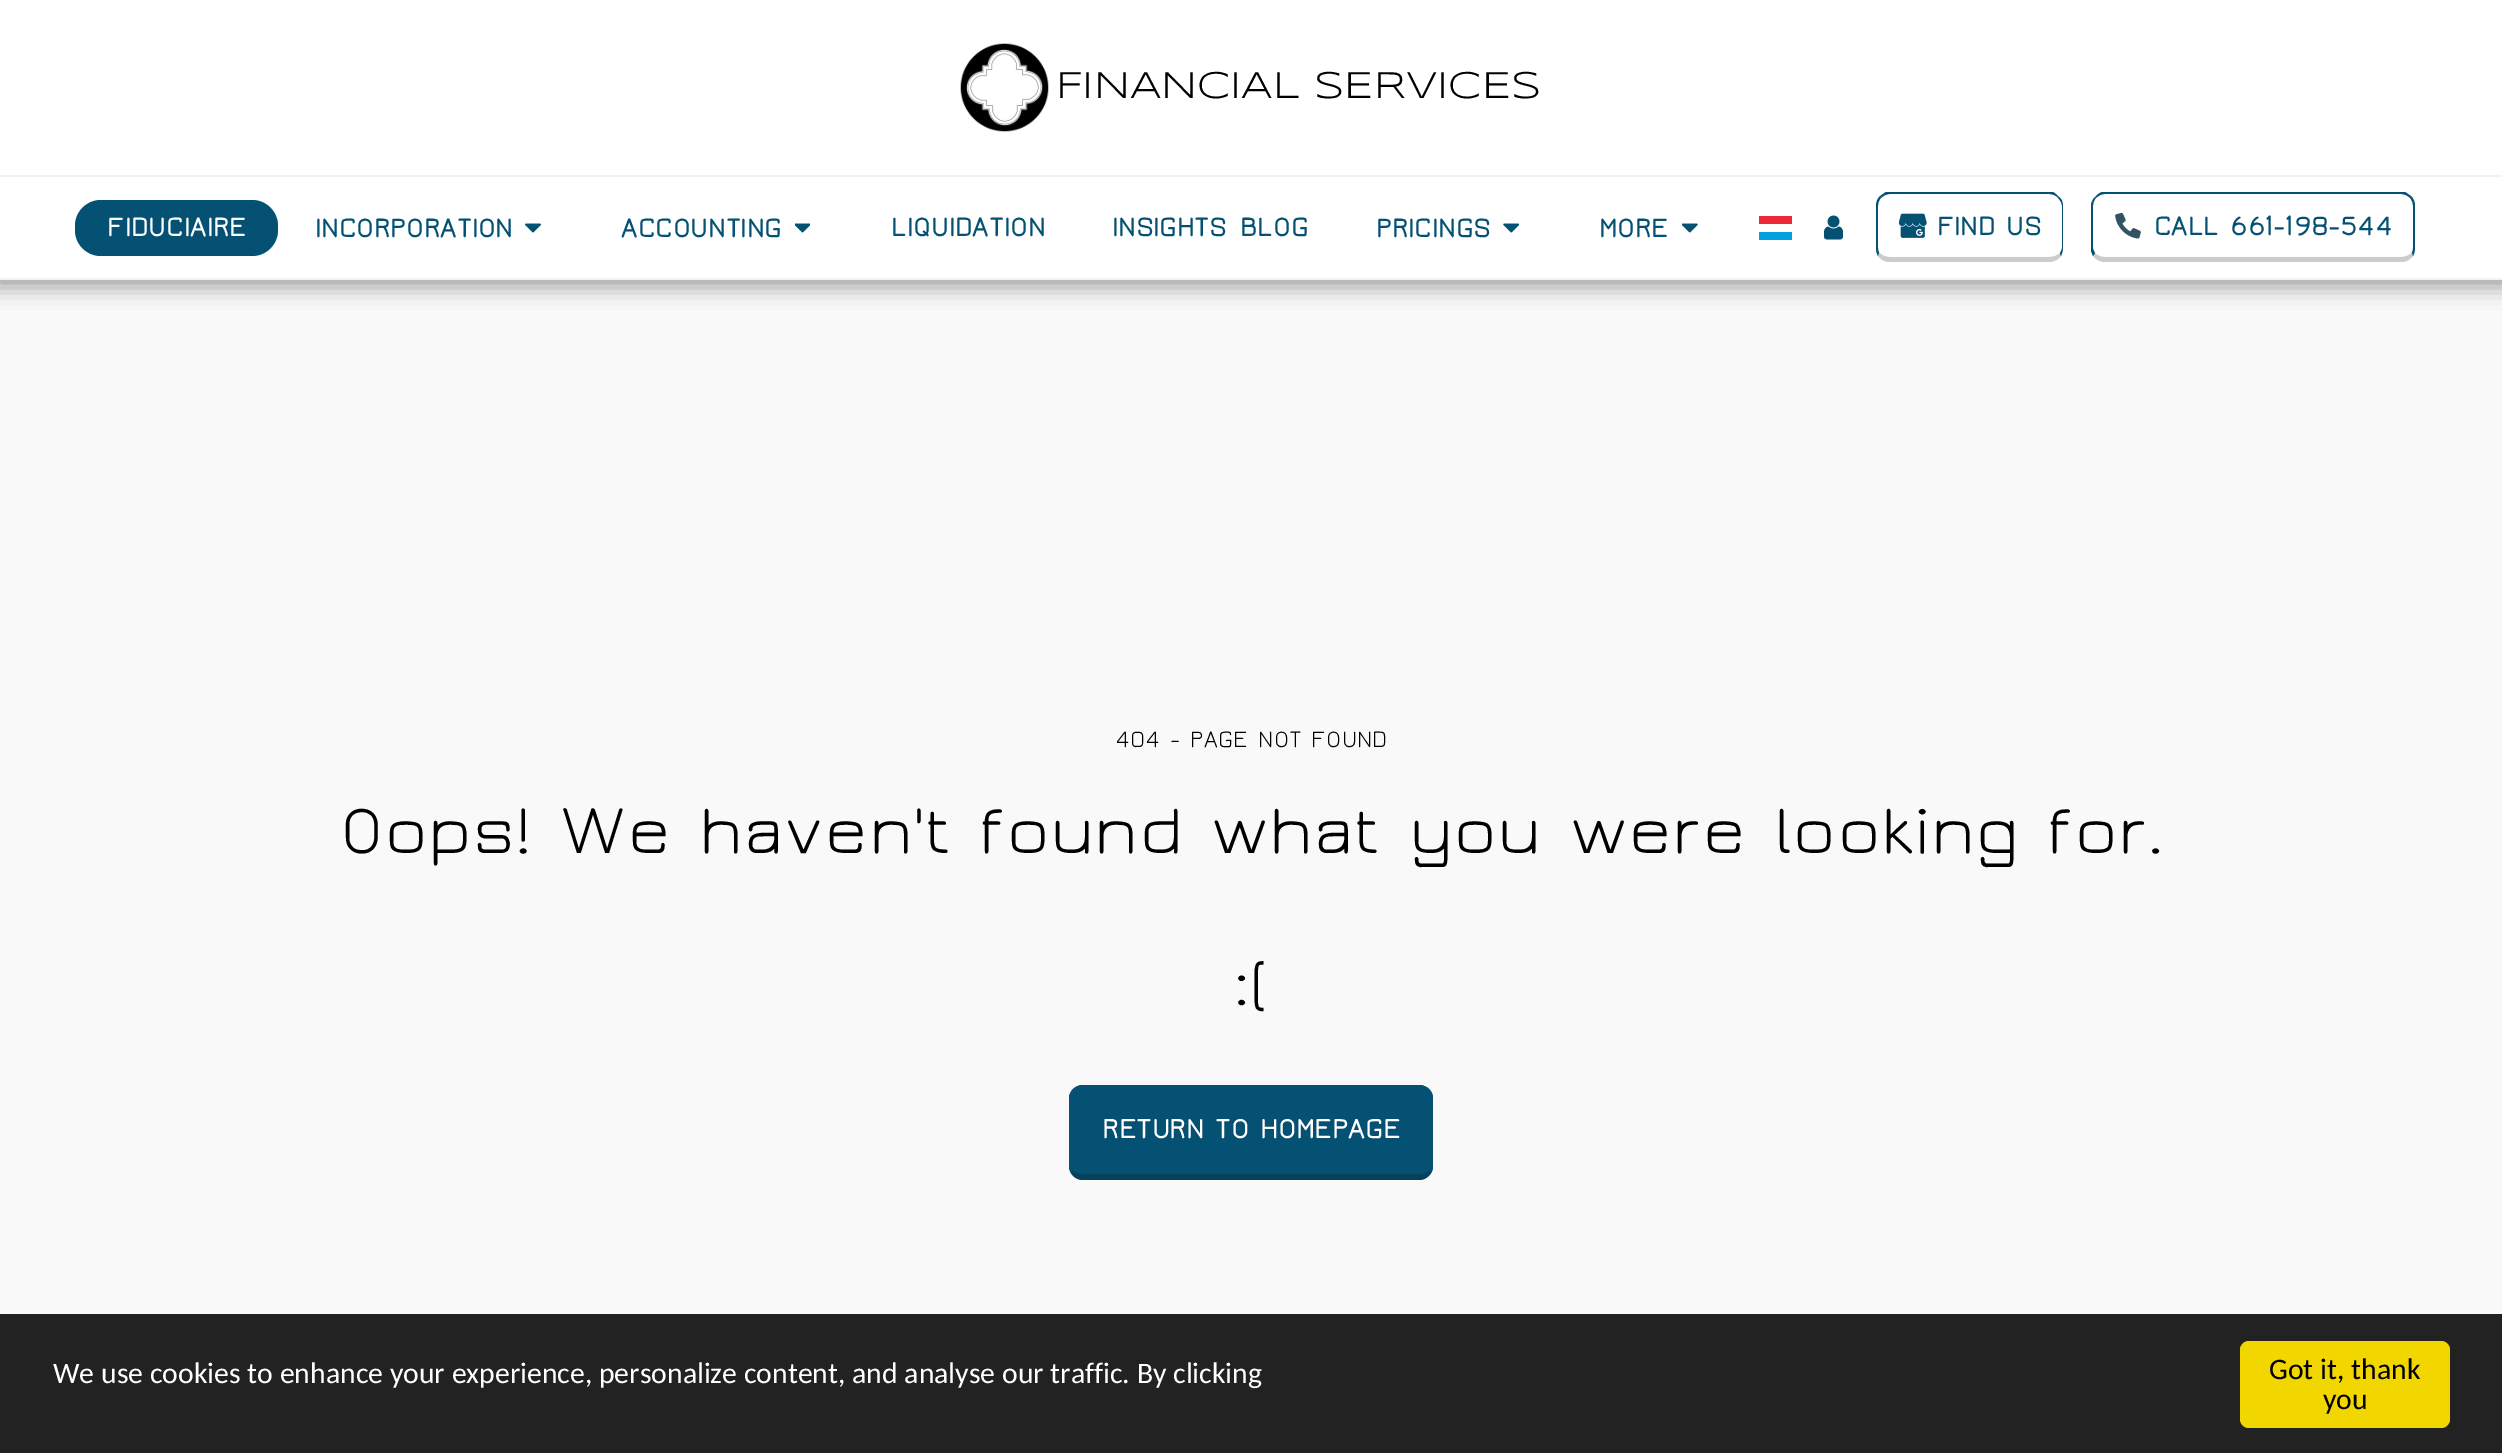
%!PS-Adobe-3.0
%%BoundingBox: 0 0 2502 1453
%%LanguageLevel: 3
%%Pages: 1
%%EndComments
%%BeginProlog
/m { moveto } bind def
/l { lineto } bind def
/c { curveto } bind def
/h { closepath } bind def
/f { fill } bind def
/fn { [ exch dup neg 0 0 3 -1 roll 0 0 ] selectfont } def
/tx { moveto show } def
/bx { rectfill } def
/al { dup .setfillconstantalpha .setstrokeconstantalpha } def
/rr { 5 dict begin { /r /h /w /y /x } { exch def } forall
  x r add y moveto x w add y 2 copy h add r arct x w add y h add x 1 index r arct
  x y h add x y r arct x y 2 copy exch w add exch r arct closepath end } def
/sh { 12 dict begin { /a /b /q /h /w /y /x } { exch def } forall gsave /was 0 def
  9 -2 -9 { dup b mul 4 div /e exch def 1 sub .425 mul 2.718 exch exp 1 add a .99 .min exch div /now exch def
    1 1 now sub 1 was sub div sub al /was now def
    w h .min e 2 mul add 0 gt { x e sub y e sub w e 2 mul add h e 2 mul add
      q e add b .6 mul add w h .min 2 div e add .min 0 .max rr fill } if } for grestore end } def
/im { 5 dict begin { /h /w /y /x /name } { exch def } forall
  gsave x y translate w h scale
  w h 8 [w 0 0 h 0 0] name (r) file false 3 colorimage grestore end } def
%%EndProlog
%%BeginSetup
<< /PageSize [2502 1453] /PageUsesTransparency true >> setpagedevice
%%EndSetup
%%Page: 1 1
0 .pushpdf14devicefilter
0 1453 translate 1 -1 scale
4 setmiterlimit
0.976 setgray
0 0 2502 1453 bx
0 setgray
-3 0 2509 287 0 10.5 0.35 sh
0.949 setgray
0 278 2502 2 bx
1 setgray
0 0 2502 175 bx
(image0.raw) 960 43 89 89 im
/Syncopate-Regular 38.5 fn
0 setgray
(FINANCIAL SERVICES) 1056 98 tx
1 setgray
0 177 2502 101 bx
0.949 setgray
0 175 2502 2 bx
0.016 0.318 0.455 setrgbcolor
75 200 203 56 26 rr f
/Jura-Bold 28 fn
1 setgray
107 236 m 0.25 0 (FIDUCIAIRE) ashow
0.016 0.318 0.455 setrgbcolor
315 237 m 0.25 0 (INCORPORATION) ashow
(image1.raw) 525 223 16 10 im
621 237 m 0.25 0 (ACCOUNTING) ashow
(image2.raw) 795 223 15 10 im
891 236 m 0.25 0 (LIQUIDATION) ashow
1112 236 m 2 0 32 0.25 0 (INSIGHTS BLOG) awidthshow
1376 237 m 0.25 0 (PRICINGS) ashow
(image3.raw) 1503 223 16 10 im
1599 237 m 0.25 0 (MORE) ashow
(image4.raw) 1682 223 16 10 im
0 0.631 0.871 setrgbcolor
1759 232 33 8 bx
0.929 0.161 0.224 setrgbcolor
1759 216 33 8 bx
(image5.raw) 1824 215 19 25 im
0.016 0.318 0.455 setrgbcolor
1890 194 m 1886 194 1883 196 1881 198 c 1880 196 l 1882 195 1884 193 1886 192 c 2053 192 l 2055 193 2057 195 2059 197 c 2058 198 l 2056 195 2052 194 2049 194 c h f
2059 197 m 2062 199 2063 203 2063 206 c 2063 248 l 2063 251 2062 253 2061 256 c 2060 253 l 2061 251 2062 250 2062 248 c 2062 206 l 2062 203 2060 200 2058 198 c h f
0.2 al
0 setgray
2061 256 m 2059 259 2054 262 2049 262 c 1890 262 l 1885 262 1881 260 1878 256 c 1879 252 l 1881 255 1885 257 1890 257 c 2049 257 l 2054 257 2058 255 2060 253 c h f
1 al
0.016 0.318 0.455 setrgbcolor
1876 206 m 1876 248 l 1876 251 1877 254 1878 256 c 1879 252 l 1878 251 1878 250 1878 248 c 1878 206 l 1878 203 1879 200 1881 198 c 1880 196 l 1877 199 1876 203 1876 206 c h f
(image6.raw) 1899 213 28 25 im
(FIND US) 1937 235 tx
2105 194 m 2102 194 2099 195 2096 198 c 2095 197 l 2097 195 2099 193 2102 192 c 2405 192 l 2407 193 2409 195 2411 196 c 2410 198 l 2408 196 2405 194 2401 194 c h f
2415 248 m 2415 206 l 2415 203 2414 199 2411 196 c 2410 198 l 2412 200 2413 203 2413 206 c 2413 248 l 2413 250 2413 251 2412 252 c 2413 256 l 2414 254 2415 251 2415 248 c h f
0.2 al
0 setgray
2413 256 m 2410 260 2406 262 2401 262 c 2105 262 l 2101 262 2096 260 2093 256 c 2095 253 l 2097 255 2100 257 2105 257 c 2401 257 l 2406 257 2410 255 2412 252 c h f
1 al
0.016 0.318 0.455 setrgbcolor
2091 204 m 2092 201 2093 199 2095 197 c 2096 198 l 2094 200 2093 203 2093 206 c 2093 248 l 2093 250 2094 251 2095 253 c 2093 256 l 2092 254 2092 253 2091 251 c h f
(image7.raw) 2115 212 26 27 im
(CALL 661-198-544) 2154 235 tx
/Jura-Regular 24.5 fn
0 setgray
(404 - PAGE NOT FOUND) 1115 747 tx
/Jura-Regular 70.5 fn
(Oops! We haven't found what you were looking for.) 340 853 tx
(:\() 1234 1008 tx
0.016 0.318 0.455 setrgbcolor
1069 1085 364 95 14 rr f
1083 1085 m 1079 1085 1076 1087 1073 1089 c 1075 1090 l 1077 1088 1080 1087 1083 1087 c 1419 1087 l 1422 1087 1426 1088 1428 1090 c 1429 1089 l 1427 1087 1423 1085 1419 1085 c h f
1429 1089 m 1432 1092 1433 1095 1433 1099 c 1433 1166 l 1433 1168 1432 1171 1431 1173 c 1430 1170 l 1431 1169 1432 1167 1432 1166 c 1432 1099 l 1432 1095 1430 1092 1428 1090 c h f
0.2 al
0 setgray
1080 1180 m 1076 1179 1073 1176 1071 1173 c 1072 1170 l 1074 1172 1078 1174 1083 1174 c 1419 1174 l 1424 1174 1428 1172 1430 1170 c 1431 1173 l 1429 1176 1426 1178 1423 1180 c h f
1 al
0.016 0.318 0.455 setrgbcolor
1069 1096 m 1070 1094 1071 1091 1073 1089 c 1075 1090 l 1073 1092 1072 1094 1071 1096 c 1071 1166 l 1072 1170 l 1071 1173 l 1069 1168 l h f
/Jura-Bold 28.9 fn
1 setgray
(RETURN TO HOMEPAGE) 1102 1138 tx
0.133 setgray
0 1314 2502 139 bx
/Carlito-Regular 29.75 fn
1 setgray
(We use cookies to enhance your experience, personalize content, and analyse our traffic. By clicking) 53 1383 tx
0.945 0.839 0 setrgbcolor
2240 1341 210 87 9 rr f
0 setgray
(Got it, thank) 2269 1379 tx
(you) 2323 1409 tx
.poppdf14devicefilter showpage
%%EOF
